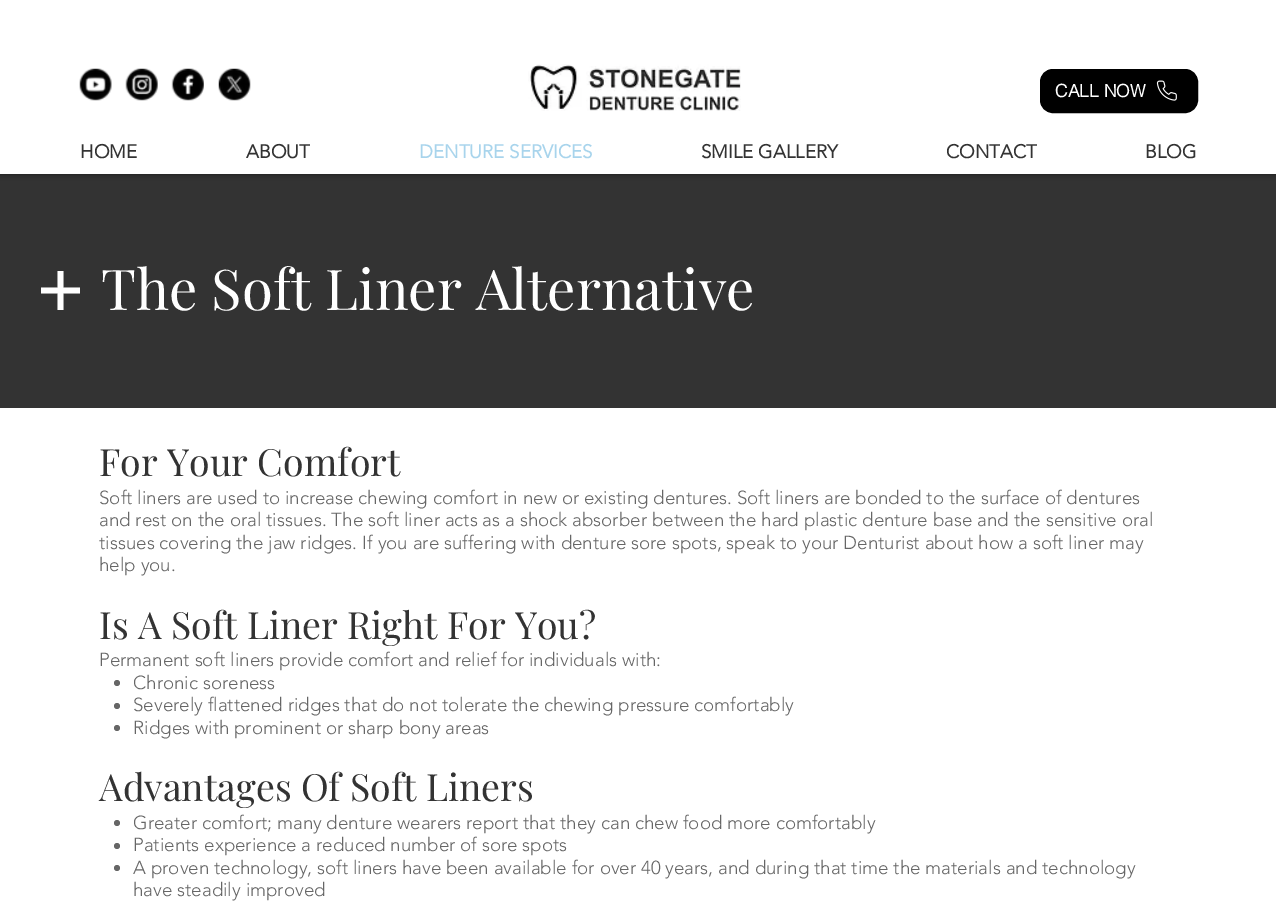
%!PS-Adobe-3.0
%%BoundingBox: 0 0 1276 907
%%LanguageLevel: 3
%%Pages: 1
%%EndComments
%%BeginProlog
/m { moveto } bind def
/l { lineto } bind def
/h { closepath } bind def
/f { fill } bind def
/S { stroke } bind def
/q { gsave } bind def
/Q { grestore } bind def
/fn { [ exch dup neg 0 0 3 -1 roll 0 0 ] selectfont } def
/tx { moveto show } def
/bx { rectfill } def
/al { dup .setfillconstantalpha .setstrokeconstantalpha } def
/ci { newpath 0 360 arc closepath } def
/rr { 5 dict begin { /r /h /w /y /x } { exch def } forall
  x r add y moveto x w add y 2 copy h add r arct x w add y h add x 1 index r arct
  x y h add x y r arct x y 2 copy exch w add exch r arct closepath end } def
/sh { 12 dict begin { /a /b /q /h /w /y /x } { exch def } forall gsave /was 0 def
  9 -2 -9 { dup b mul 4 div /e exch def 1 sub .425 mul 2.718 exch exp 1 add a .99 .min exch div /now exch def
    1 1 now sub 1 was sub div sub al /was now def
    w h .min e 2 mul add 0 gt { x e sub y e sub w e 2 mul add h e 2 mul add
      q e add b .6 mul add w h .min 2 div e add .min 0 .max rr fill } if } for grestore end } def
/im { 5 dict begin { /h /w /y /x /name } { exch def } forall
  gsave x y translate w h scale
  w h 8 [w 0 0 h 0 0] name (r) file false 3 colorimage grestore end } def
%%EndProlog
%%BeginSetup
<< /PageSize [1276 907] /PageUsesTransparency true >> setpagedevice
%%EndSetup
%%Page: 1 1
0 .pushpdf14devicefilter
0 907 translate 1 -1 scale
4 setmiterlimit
1 setgray
0 0 1276 907 bx
0.2 setgray
0 174 1276 234 bx
0 setgray
0 0 1276 174 0 3 0.5 sh
1 setgray
0 0 1276 174 bx
(image0.raw) 79 68 33 33 im
(image1.raw) 125 68 33 33 im
(image2.raw) 171 68 33 33 im
(image3.raw) 218 68 33 33 im
(image4.raw) 528 64 213 47 im
0 setgray
1040.5 69.5 157 43 12.5 rr q f Q
S
/helvetica-Bold 17.5 fn
1 setgray
(CALL NOW) 1055 97 tx
(image5.raw) 1156 80 21 21 im
/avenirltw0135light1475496-Bold 18.75 fn
0.2 setgray
(HOME) 80 158 tx
(ABOUT) 246 158 tx
0.659 0.831 0.925 setrgbcolor
(DENTURE SERVICES) 419 158 tx
0.2 setgray
(SMILE GALLERY) 701 158 tx
(CONTACT) 946 158 tx
(BLOG) 1145 158 tx
1 setgray
80 287.5 m 63.5 287.5 l 63.5 271 l 57.5 271 l 57.5 287.5 l 41 287.5 l 41 293.5 l 57.5 293.5 l 57.5 310 l 63.5 310 l 63.5 293.5 l 80 293.5 l h f
/PlayfairDisplay-Regular 56.25 fn
(The Soft Liner Alternative) 101 310 tx
/PlayfairDisplay-Regular 37.5 fn
0.2 setgray
(For Your Comfort) 99 476 tx
/avenirltw0135light1475496-Light 18.75 fn
0.4 setgray
(Soft liners are used to increase chewing comfort in new or existing dentures. Soft liners are bonded to the surface of dentures) 99 504 tx
(and rest on the oral tissues. The soft liner acts as a shock absorber between the hard plastic denture base and the sensitive oral) 99 526 tx
(tissues covering the jaw ridges. If you are suffering with denture sore spots, speak to your Denturist about how a soft liner may) 99 549 tx
(help you.) 99 571 tx
/PlayfairDisplay-Regular 37.5 fn
0.2 setgray
(Is A Soft Liner Right For You?) 99 639 tx
/avenirltw0135light1475496-Light 18.75 fn
0.4 setgray
(Permanent soft liners provide comfort and relief for individuals with:) 99 666 tx
117 683 3 ci f
(Chronic soreness) 133 689 tx
117 706 3 ci f
(Severely flattened ridges that do not tolerate the chewing pressure comfortably) 133 711 tx
117 728 3 ci f
(Ridges with prominent or sharp bony areas) 133 734 tx
/PlayfairDisplay-Regular 37.5 fn
0.2 setgray
(Advantages Of Soft Liners) 99 801 tx
0.4 setgray
117 823 3 ci f
/avenirltw0135light1475496-Light 18.75 fn
(Greater comfort; many denture wearers report that they can chew food more comfortably) 133 829 tx
117 846 3 ci f
(Patients experience a reduced number of sore spots) 133 851 tx
117 868 3 ci f
(A proven technology, soft liners have been available for over 40 years, and during that time the materials and technology) 133 874 tx
(have steadily improved) 133 896 tx
.poppdf14devicefilter showpage
%%EOF
